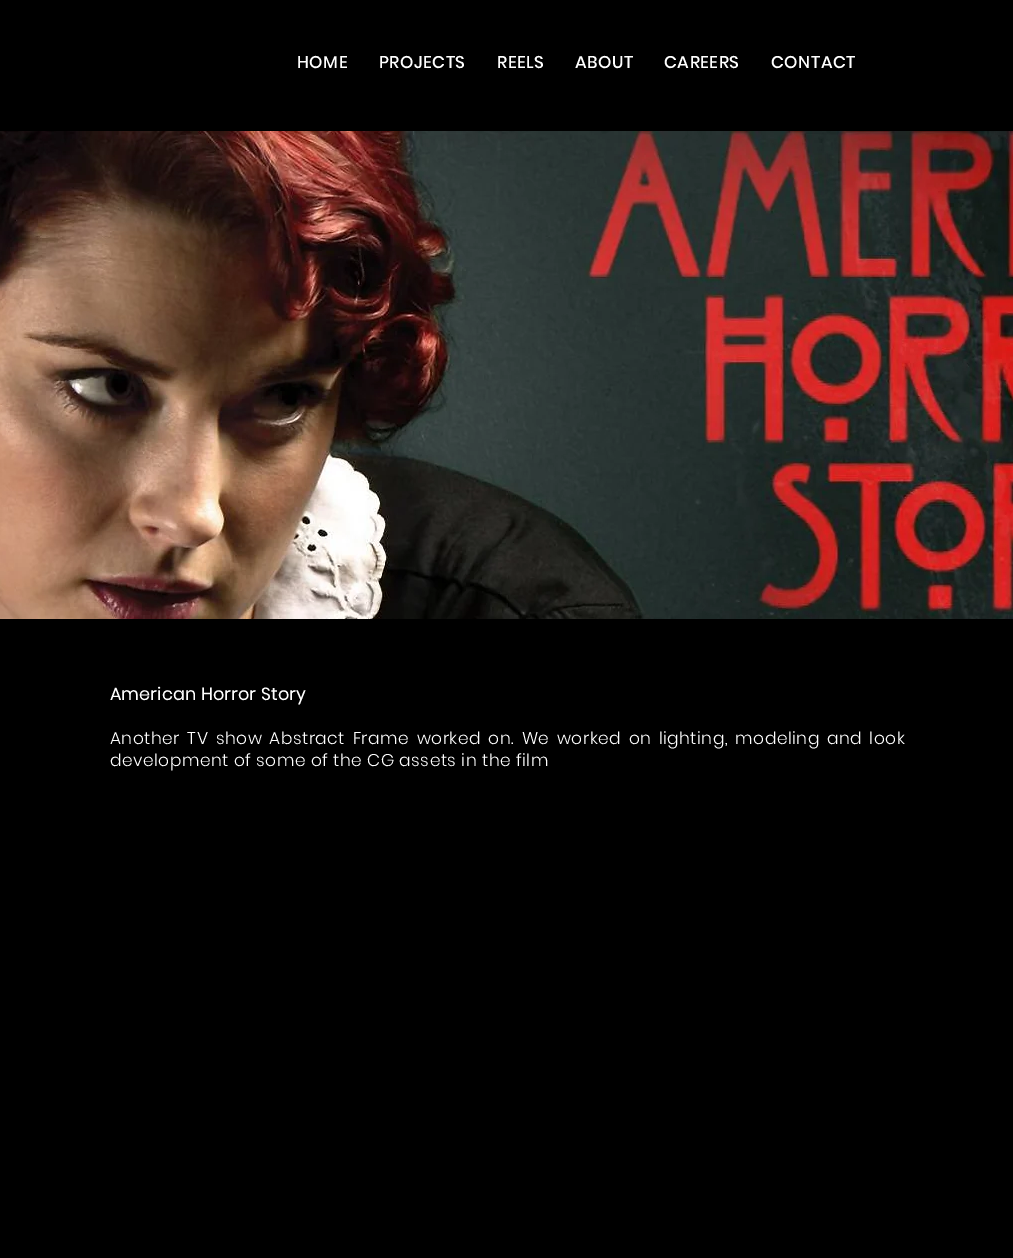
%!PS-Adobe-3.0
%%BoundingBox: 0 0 1013 1258
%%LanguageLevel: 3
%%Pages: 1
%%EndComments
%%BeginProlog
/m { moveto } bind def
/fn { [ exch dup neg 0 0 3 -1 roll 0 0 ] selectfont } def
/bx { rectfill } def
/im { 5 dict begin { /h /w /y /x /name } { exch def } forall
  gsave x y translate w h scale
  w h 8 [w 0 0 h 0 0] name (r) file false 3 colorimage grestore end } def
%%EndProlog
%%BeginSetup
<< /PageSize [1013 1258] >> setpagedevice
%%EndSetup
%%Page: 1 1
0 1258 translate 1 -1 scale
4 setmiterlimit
0 setgray
0 0 1013 1258 bx
/Poppins-Medium 17 fn
1 setgray
297 68 m 0.5 0 (HOME) ashow
379 68 m 0.5 0 (PROJECTS) ashow
497 68 m 0.5 0 (REELS) ashow
575 68 m 0.5 0 (ABOUT) ashow
664 68 m 0.5 0 (CAREERS) ashow
771 68 m 0.5 0 (CONTACT) ashow
(image0.raw) 0 131 1013 488 im
/Poppins-Bold 17 fn
110 700 m 0.5 0 (American Horror Story) ashow
/Poppins-Light 17 fn
110 744 m 2.5 0 32 0.5 0 (Another TV show Abstract Frame worked on. We worked on lighting, modeling and look) awidthshow
110 766 m 0.5 0 (development of some of the CG assets in the film) ashow
showpage
%%EOF
